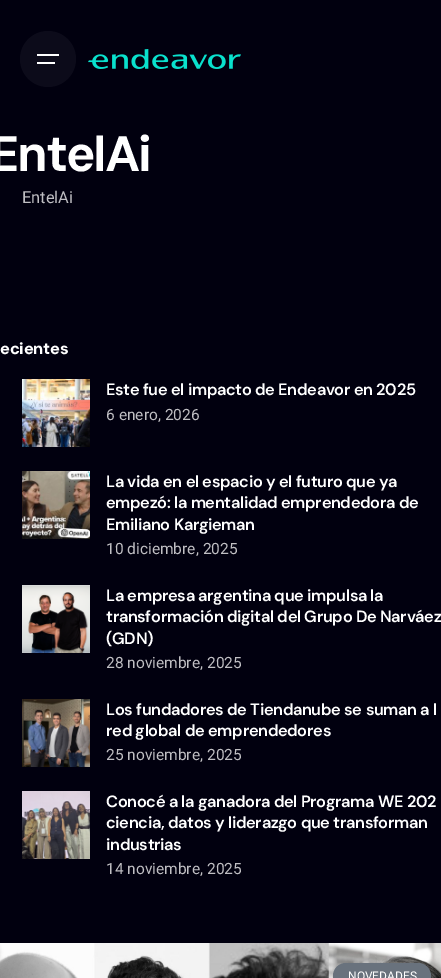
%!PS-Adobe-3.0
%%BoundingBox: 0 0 441 978
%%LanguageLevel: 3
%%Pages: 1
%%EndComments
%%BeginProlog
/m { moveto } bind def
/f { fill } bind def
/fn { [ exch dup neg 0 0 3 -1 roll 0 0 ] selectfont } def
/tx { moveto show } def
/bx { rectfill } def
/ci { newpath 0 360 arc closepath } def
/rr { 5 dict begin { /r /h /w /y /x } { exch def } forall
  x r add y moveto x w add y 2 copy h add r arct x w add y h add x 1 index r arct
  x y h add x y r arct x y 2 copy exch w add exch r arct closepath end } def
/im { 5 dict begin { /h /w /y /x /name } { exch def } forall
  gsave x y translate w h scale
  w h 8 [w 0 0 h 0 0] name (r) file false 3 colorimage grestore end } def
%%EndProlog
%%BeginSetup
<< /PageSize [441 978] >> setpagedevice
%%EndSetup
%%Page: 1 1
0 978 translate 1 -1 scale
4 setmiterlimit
0.004 0 0.059 setrgbcolor
0 0 441 978 bx
0.047 0.043 0.102 setrgbcolor
48 59 28 ci f
1 setgray
37 54 22 2 bx
37 62 18 2 bx
(image0.raw) 88 49 153 20 im
/DMSans-Bold 49.5 fn
-10 171 m -2.25 0 (EntelAi) ashow
/Roboto-Regular 16.4 fn
0.753 0.749 0.765 setrgbcolor
(EntelAi) 22 203 tx
/DMSans-ExtraBold 16.4 fn
1 setgray
0 354 m -0.25 0 (ecientes) ashow
(image1.raw) 22 379 68 68 im
/DMSans-SemiBold 16.4 fn
106 395 m -0.35 0 (Este fue el impacto de Endeavor en 2025) ashow
/Roboto-Regular 15.5 fn
0.753 0.749 0.765 setrgbcolor
(6 enero, 2026) 106 420 tx
(image2.raw) 22 471 68 68 im
/DMSans-SemiBold 16.4 fn
1 setgray
106 487 m -0.35 0 (La vida en el espacio y el futuro que ya) ashow
106 508 m -0.35 0 (empezó: la mentalidad emprendedora de) ashow
106 530 m -0.35 0 (Emiliano Kargieman) ashow
/Roboto-Regular 15.5 fn
0.753 0.749 0.765 setrgbcolor
(10 diciembre, 2025) 106 554 tx
(image3.raw) 22 585 68 68 im
/DMSans-SemiBold 16.4 fn
1 setgray
106 601 m -0.35 0 (La empresa argentina que impulsa la) ashow
106 622 m -0.35 0 (transformación digital del Grupo De Narváez) ashow
106 644 m -0.35 0 (\(GDN\)) ashow
/Roboto-Regular 15.5 fn
0.753 0.749 0.765 setrgbcolor
(28 noviembre, 2025) 106 668 tx
(image4.raw) 22 699 68 68 im
/DMSans-SemiBold 16.4 fn
1 setgray
106 715 m -0.35 0 (Los fundadores de Tiendanube se suman a l) ashow
106 736 m -0.35 0 (red global de emprendedores) ashow
/Roboto-Regular 15.5 fn
0.753 0.749 0.765 setrgbcolor
(25 noviembre, 2025) 106 760 tx
(image5.raw) 22 791 68 68 im
/DMSans-SemiBold 16.4 fn
1 setgray
106 807 m -0.35 0 (Conocé a la ganadora del Programa WE 202) ashow
106 828 m -0.35 0 (ciencia, datos y liderazgo que transforman) ashow
106 850 m -0.35 0 (industrias) ashow
/Roboto-Regular 15.5 fn
0.753 0.749 0.765 setrgbcolor
(14 noviembre, 2025) 106 874 tx
(image6.raw) 0 943 441 35 im
0.412 0.447 0.49 setrgbcolor
333 963 98 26 13 rr f
/Roboto-Regular 12 fn
1 setgray
(NOVEDADES) 348 980 tx
showpage
%%EOF
